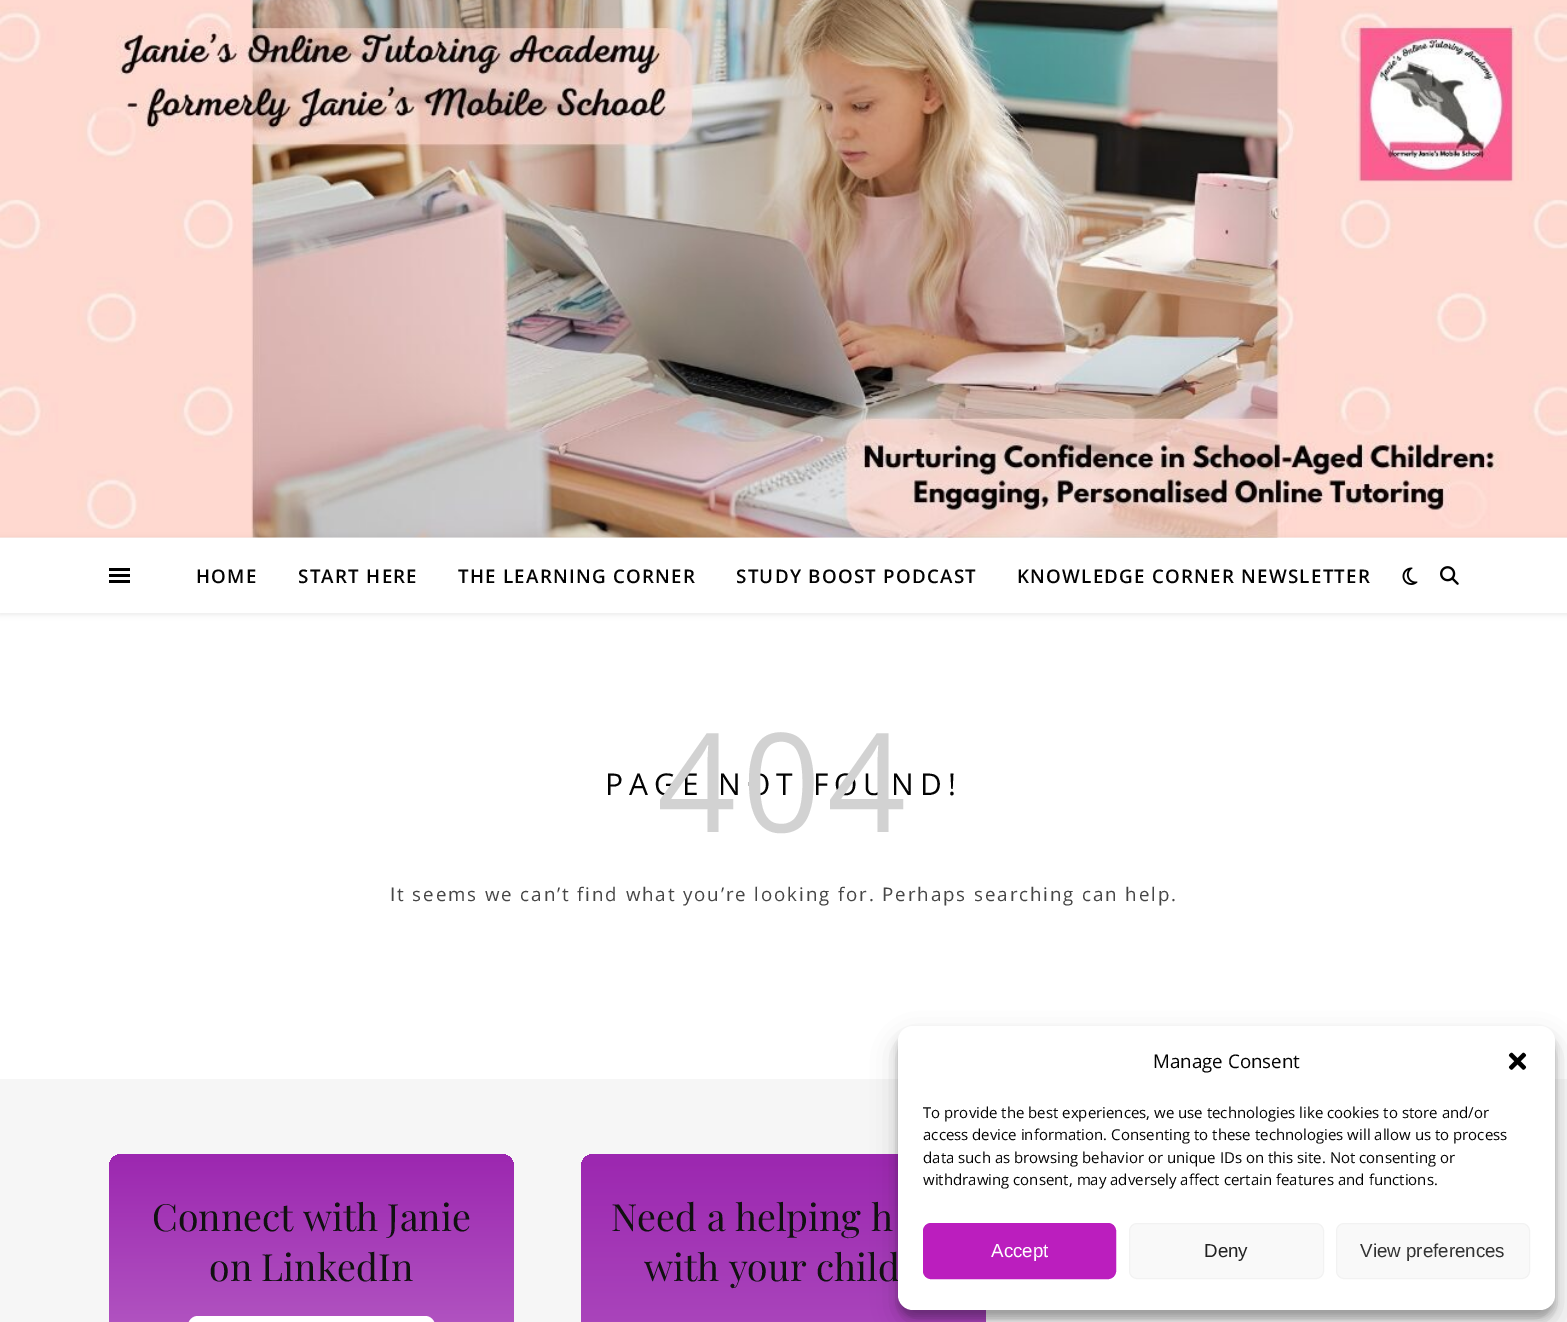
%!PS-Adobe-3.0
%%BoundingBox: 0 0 1567 1322
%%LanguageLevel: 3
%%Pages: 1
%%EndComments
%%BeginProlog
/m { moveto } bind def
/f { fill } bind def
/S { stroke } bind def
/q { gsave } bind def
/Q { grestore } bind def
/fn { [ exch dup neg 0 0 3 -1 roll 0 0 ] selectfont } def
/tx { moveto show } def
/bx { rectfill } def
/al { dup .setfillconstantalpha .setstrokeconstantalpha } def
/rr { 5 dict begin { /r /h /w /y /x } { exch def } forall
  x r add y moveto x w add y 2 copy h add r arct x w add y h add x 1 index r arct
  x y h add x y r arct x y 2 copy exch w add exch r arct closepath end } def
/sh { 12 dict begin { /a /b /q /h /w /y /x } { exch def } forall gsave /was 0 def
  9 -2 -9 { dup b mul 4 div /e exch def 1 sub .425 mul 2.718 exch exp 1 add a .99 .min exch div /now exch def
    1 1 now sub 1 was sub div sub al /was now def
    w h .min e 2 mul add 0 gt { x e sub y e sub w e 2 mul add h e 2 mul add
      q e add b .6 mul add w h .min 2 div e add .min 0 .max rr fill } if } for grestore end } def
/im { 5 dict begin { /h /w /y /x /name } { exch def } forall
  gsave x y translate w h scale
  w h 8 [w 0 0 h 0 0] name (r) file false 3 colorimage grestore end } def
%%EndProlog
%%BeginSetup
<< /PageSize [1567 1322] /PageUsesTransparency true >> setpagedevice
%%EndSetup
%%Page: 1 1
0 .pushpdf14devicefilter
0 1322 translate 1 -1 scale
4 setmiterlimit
1 setgray
0 0 1567 1322 bx
(image0.raw) 0 0 1567 538 im
0 setgray
0 539 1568 75 0 3 0.1 sh
1 setgray
0 538 1567 75 bx
0 setgray
109 568 21 3 bx
109 574 21 3 bx
109 580 21 3 bx
/OpenSans-SemiBold 18.75 fn
0.012 setgray
196 583 m 1.25 0 (HOME) ashow
298 583 m 1.25 0 (START HERE) ashow
458 583 m 1.25 0 (THE LEARNING CORNER) ashow
736 583 m 1.25 0 (STUDY BOOST PODCAST) ashow
1017 583 m 1.25 0 (KNOWLEDGE CORNER NEWSLETTER) ashow
(image1.raw) 1402 567 16 18 im
(image2.raw) 1440 566 19 19 im
/OpenSans-Regular 30 fn
605 795 m 6 0 (PAGE NOT FOUND!) ashow
/OpenSans-Regular 138 fn
0.824 setgray
657 832 m 6 0 (404) ashow
/OpenSans-Regular 18.75 fn
0.275 setgray
390 901 m 1.88 0 (It seems we can’t find what you’re looking for. Perhaps searching can help.) ashow
0.965 setgray
0 1079 1567 243 bx
q 109 1154 405 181 13 rr clip newpath
<< /ShadingType 2 /ColorSpace /DeviceRGB /Coords [311 1154 311 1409] /Extend [true true] /Function << /FunctionType 2 /Domain [0 1] /C0 [0.612 0.153 0.69] /C1 [0.729 0.408 0.784] /N 1 >> >> shfill Q
/PlayfairDisplay-Regular 37.5 fn
0.067 setgray
(Connect with Janie) 152 1231 tx
(on LinkedIn) 209 1281 tx
1 setgray
188 1316 247 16 10 rr f
q 581 1154 405 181 13 rr clip newpath
<< /ShadingType 2 /ColorSpace /DeviceRGB /Coords [784 1154 784 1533] /Extend [true true] /Function << /FunctionType 2 /Domain [0 1] /C0 [0.612 0.153 0.69] /C1 [0.729 0.408 0.784] /N 1 >> >> shfill Q
0.067 setgray
(Need a helping h) 611 1231 tx
(with your child) 644 1281 tx
0 setgray
898 1034 657 284 15 4 0.23 sh
898 1039 657 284 15 12.5 0.19 sh
1 setgray
898 1026 657 284 15 rr f
/OpenSans-Regular 18.75 fn
0.012 setgray
(Manage Consent) 1153 1068 tx
(image3.raw) 1508 1052 19 18 im
/OpenSans-Regular 15 fn
(To provide the best experiences, we use technologies like cookies to store and/or) 923 1118 tx
(access device information. Consenting to these technologies will allow us to process) 923 1140 tx
(data such as browsing behavior or unique IDs on this site. Not consenting or) 923 1163 tx
(withdrawing consent, may adversely affect certain features and functions.) 923 1185 tx
0.733 0.118 0.745 setrgbcolor
923.5 1223.5 192 55 7.5 rr q f Q
S
/LiberationSans-Regular 18.75 fn
1 setgray
(Accept) 991 1257 tx
0.976 setgray
1129.5 1223.5 194 55 7.5 rr q f Q
0.949 setgray
S
0.133 setgray
(Deny) 1204 1257 tx
0.976 setgray
1336.5 1223.5 193 55 7.5 rr q f Q
0.949 setgray
S
0.2 setgray
(View preferences) 1360 1257 tx
.poppdf14devicefilter showpage
%%EOF
